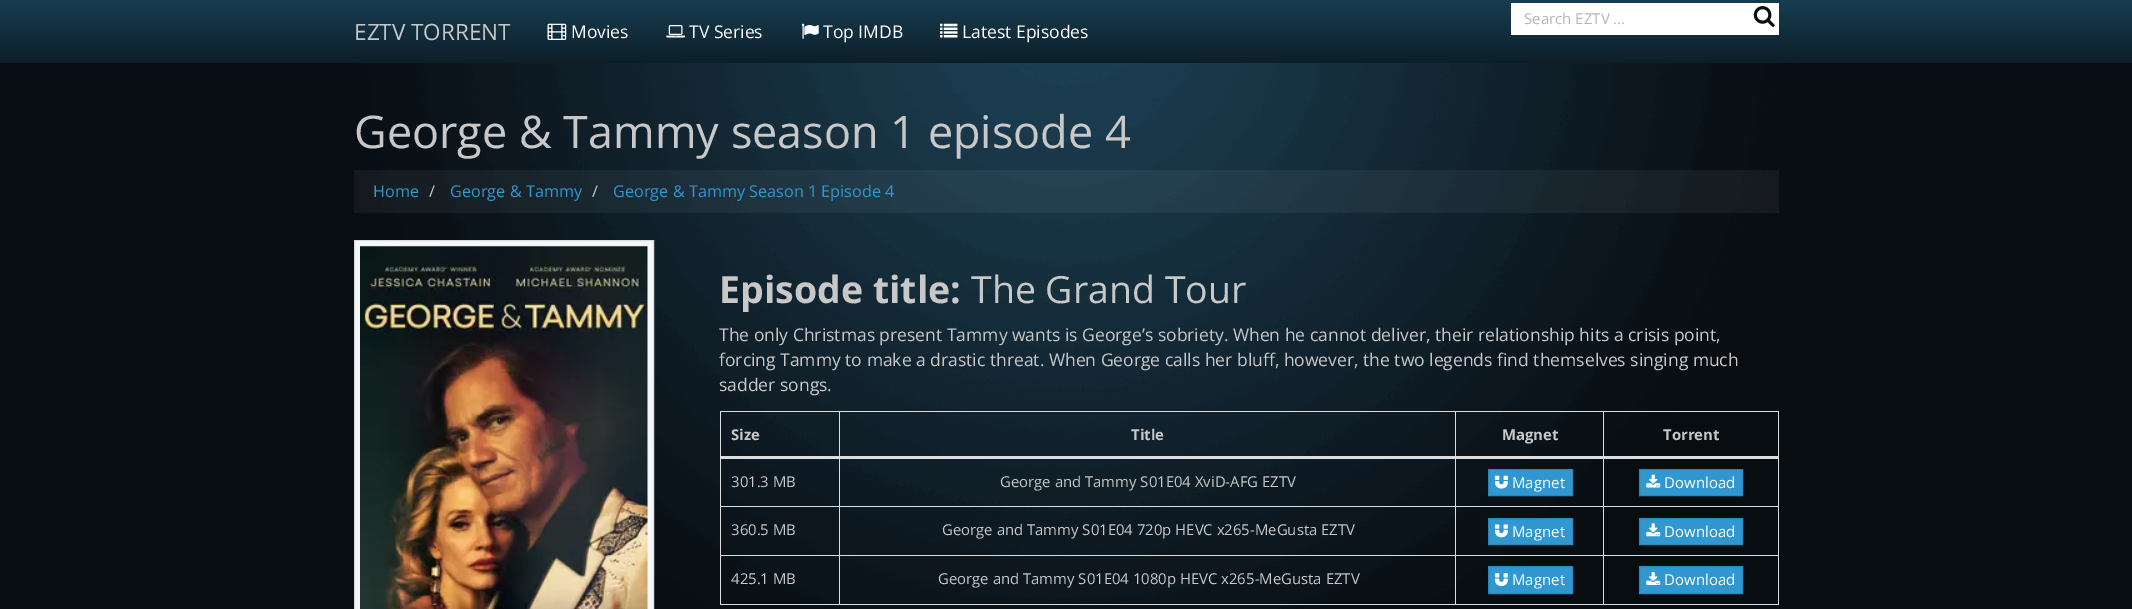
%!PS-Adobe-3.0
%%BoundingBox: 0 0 2132 609
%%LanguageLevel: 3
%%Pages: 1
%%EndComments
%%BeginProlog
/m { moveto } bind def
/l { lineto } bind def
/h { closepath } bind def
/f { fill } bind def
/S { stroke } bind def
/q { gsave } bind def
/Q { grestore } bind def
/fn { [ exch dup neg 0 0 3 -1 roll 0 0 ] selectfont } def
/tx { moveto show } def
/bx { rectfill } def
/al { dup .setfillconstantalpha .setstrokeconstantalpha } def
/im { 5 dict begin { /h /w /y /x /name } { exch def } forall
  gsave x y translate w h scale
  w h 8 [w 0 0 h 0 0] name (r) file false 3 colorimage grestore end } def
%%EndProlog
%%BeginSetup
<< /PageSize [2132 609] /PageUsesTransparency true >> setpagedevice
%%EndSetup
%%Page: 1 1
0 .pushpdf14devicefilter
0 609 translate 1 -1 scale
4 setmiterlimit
0.031 0.051 0.067 setrgbcolor
0 0 2132 609 bx
(image0.raw) 329 63 1476 546 im
q 0 0 m 2132 0 l 2132 63 l 0 63 l h clip newpath
<< /ShadingType 2 /ColorSpace /DeviceRGB /Coords [1066 0 1066 63] /Extend [true true] /Function << /FunctionType 3 /Domain [0 1] /Functions [<< /FunctionType 2 /Domain [0 1] /C0 [0.094 0.239 0.318] /C1 [0.067 0.169 0.224] /N 1 >> << /FunctionType 2 /Domain [0 1] /C0 [0.067 0.169 0.224] /C1 [0.047 0.122 0.161] /N 1 >>] /Bounds [0.6] /Encode [0 1 0 1] >> >> shfill Q
/OpenSans-Regular 22.5 fn
0.784 setgray
(EZTV TORRENT) 354 40 tx
1 setgray
1511 3 268 32 bx
/OpenSans-Regular 15 fn
0.694 0.718 0.729 setrgbcolor
(Search EZTV ...) 1524 24 tx
(image1.raw) 1753 6 22 21 im
(image2.raw) 547 23 20 17 im
/OpenSans-Regular 17.5 fn
1 setgray
(Movies) 571 38 tx
(image3.raw) 666 25 19 13 im
(TV Series) 689 38 tx
(image4.raw) 801 23 18 16 im
(Top IMDB) 823 38 tx
(image5.raw) 940 23 18 15 im
(Latest Episodes) 962 38 tx
/OpenSans-Regular 45 fn
0.784 setgray
(George & Tammy season 1 episode 4) 354 148 tx
0.05 al
1 setgray
354 170 1425 43 bx
/OpenSans-Regular 16.25 fn
1 al
0.188 0.592 0.82 setrgbcolor
(Home) 373 197 tx
0.784 setgray
(/) 429 197 tx
0.188 0.592 0.82 setrgbcolor
(George & Tammy) 450 197 tx
0.784 setgray
(/) 592 197 tx
0.188 0.592 0.82 setrgbcolor
(George & Tammy Season 1 Episode 4) 613 197 tx
0.961 0.973 0.98 setrgbcolor
354.5 240.5 m 653.5 240.5 l 653.5 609.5 l 354.5 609.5 l h q f Q
0.867 setgray
S
(image6.raw) 360 246 288 363 im
/OpenSans-Bold 37.5 fn
0.784 setgray
(Episode title:) 719 303 tx
/OpenSans-Regular 37.5 fn
(The Grand Tour) 971 303 tx
/OpenSans-Regular 17.5 fn
(The only Christmas present Tammy wants is George’s sobriety. When he cannot deliver, their relationship hits a crisis point,) 719 341 tx
(forcing Tammy to make a drastic threat. When George calls her bluff, however, the two legends find themselves singing much) 719 366 tx
(sadder songs.) 719 391 tx
0.867 setgray
720 411 1059 1 bx
1778 411 1 194 bx
720 604 1059 1 bx
720 411 1 194 bx
/OpenSans-Bold 14.9 fn
0.784 setgray
(Size) 731 440 tx
(Title) 1131 440 tx
(Magnet) 1502 440 tx
0.867 setgray
1603 506 176 1 bx
1603 555 176 1 bx
1603 555 1 50 bx
1455 555 149 1 bx
1603 506 1 50 bx
1455 506 149 1 bx
1455 555 1 50 bx
839 555 617 1 bx
1455 506 1 50 bx
839 506 617 1 bx
839 555 1 50 bx
720 555 120 1 bx
839 506 1 50 bx
720 506 120 1 bx
839 411 1 97 bx
1455 411 1 97 bx
1603 411 1 97 bx
720 456 1059 3 bx
0.784 setgray
(Torrent) 1663 440 tx
/OpenSans-Regular 14.9 fn
(301.3 MB) 731 487 tx
(George and Tammy S01E04 XviD-AFG EZTV) 1000 487 tx
0.188 0.592 0.82 setrgbcolor
1488.5 469.5 m 1572.5 469.5 l 1572.5 495.5 l 1488.5 495.5 l h q f Q
0.165 0.533 0.741 setrgbcolor
S
(image7.raw) 1495 475 13 14 im
/OpenSans-Regular 15 fn
1 setgray
(Magnet) 1512 488 tx
0.188 0.592 0.82 setrgbcolor
1639.5 469.5 m 1742.5 469.5 l 1742.5 495.5 l 1639.5 495.5 l h q f Q
0.165 0.533 0.741 setrgbcolor
S
(image8.raw) 1646 474 15 14 im
1 setgray
(Download) 1664 488 tx
/OpenSans-Regular 14.9 fn
0.784 setgray
(360.5 MB) 731 535 tx
(George and Tammy S01E04 720p HEVC x265-MeGusta EZTV) 942 535 tx
0.188 0.592 0.82 setrgbcolor
1488.5 518.5 m 1572.5 518.5 l 1572.5 544.5 l 1488.5 544.5 l h q f Q
0.165 0.533 0.741 setrgbcolor
S
(image9.raw) 1495 524 13 14 im
/OpenSans-Regular 15 fn
1 setgray
(Magnet) 1512 537 tx
0.188 0.592 0.82 setrgbcolor
1639.5 518.5 m 1742.5 518.5 l 1742.5 544.5 l 1639.5 544.5 l h q f Q
0.165 0.533 0.741 setrgbcolor
S
(image10.raw) 1646 523 15 14 im
1 setgray
(Download) 1664 537 tx
/OpenSans-Regular 14.9 fn
0.784 setgray
(425.1 MB) 731 584 tx
(George and Tammy S01E04 1080p HEVC x265-MeGusta EZTV) 938 584 tx
0.188 0.592 0.82 setrgbcolor
1488.5 566.5 m 1572.5 566.5 l 1572.5 593.5 l 1488.5 593.5 l h q f Q
0.165 0.533 0.741 setrgbcolor
S
(image11.raw) 1495 573 13 14 im
/OpenSans-Regular 15 fn
1 setgray
(Magnet) 1512 585 tx
0.188 0.592 0.82 setrgbcolor
1639.5 566.5 m 1742.5 566.5 l 1742.5 593.5 l 1639.5 593.5 l h q f Q
0.165 0.533 0.741 setrgbcolor
S
(image12.raw) 1646 572 15 13 im
1 setgray
(Download) 1664 585 tx
.poppdf14devicefilter showpage
%%EOF
